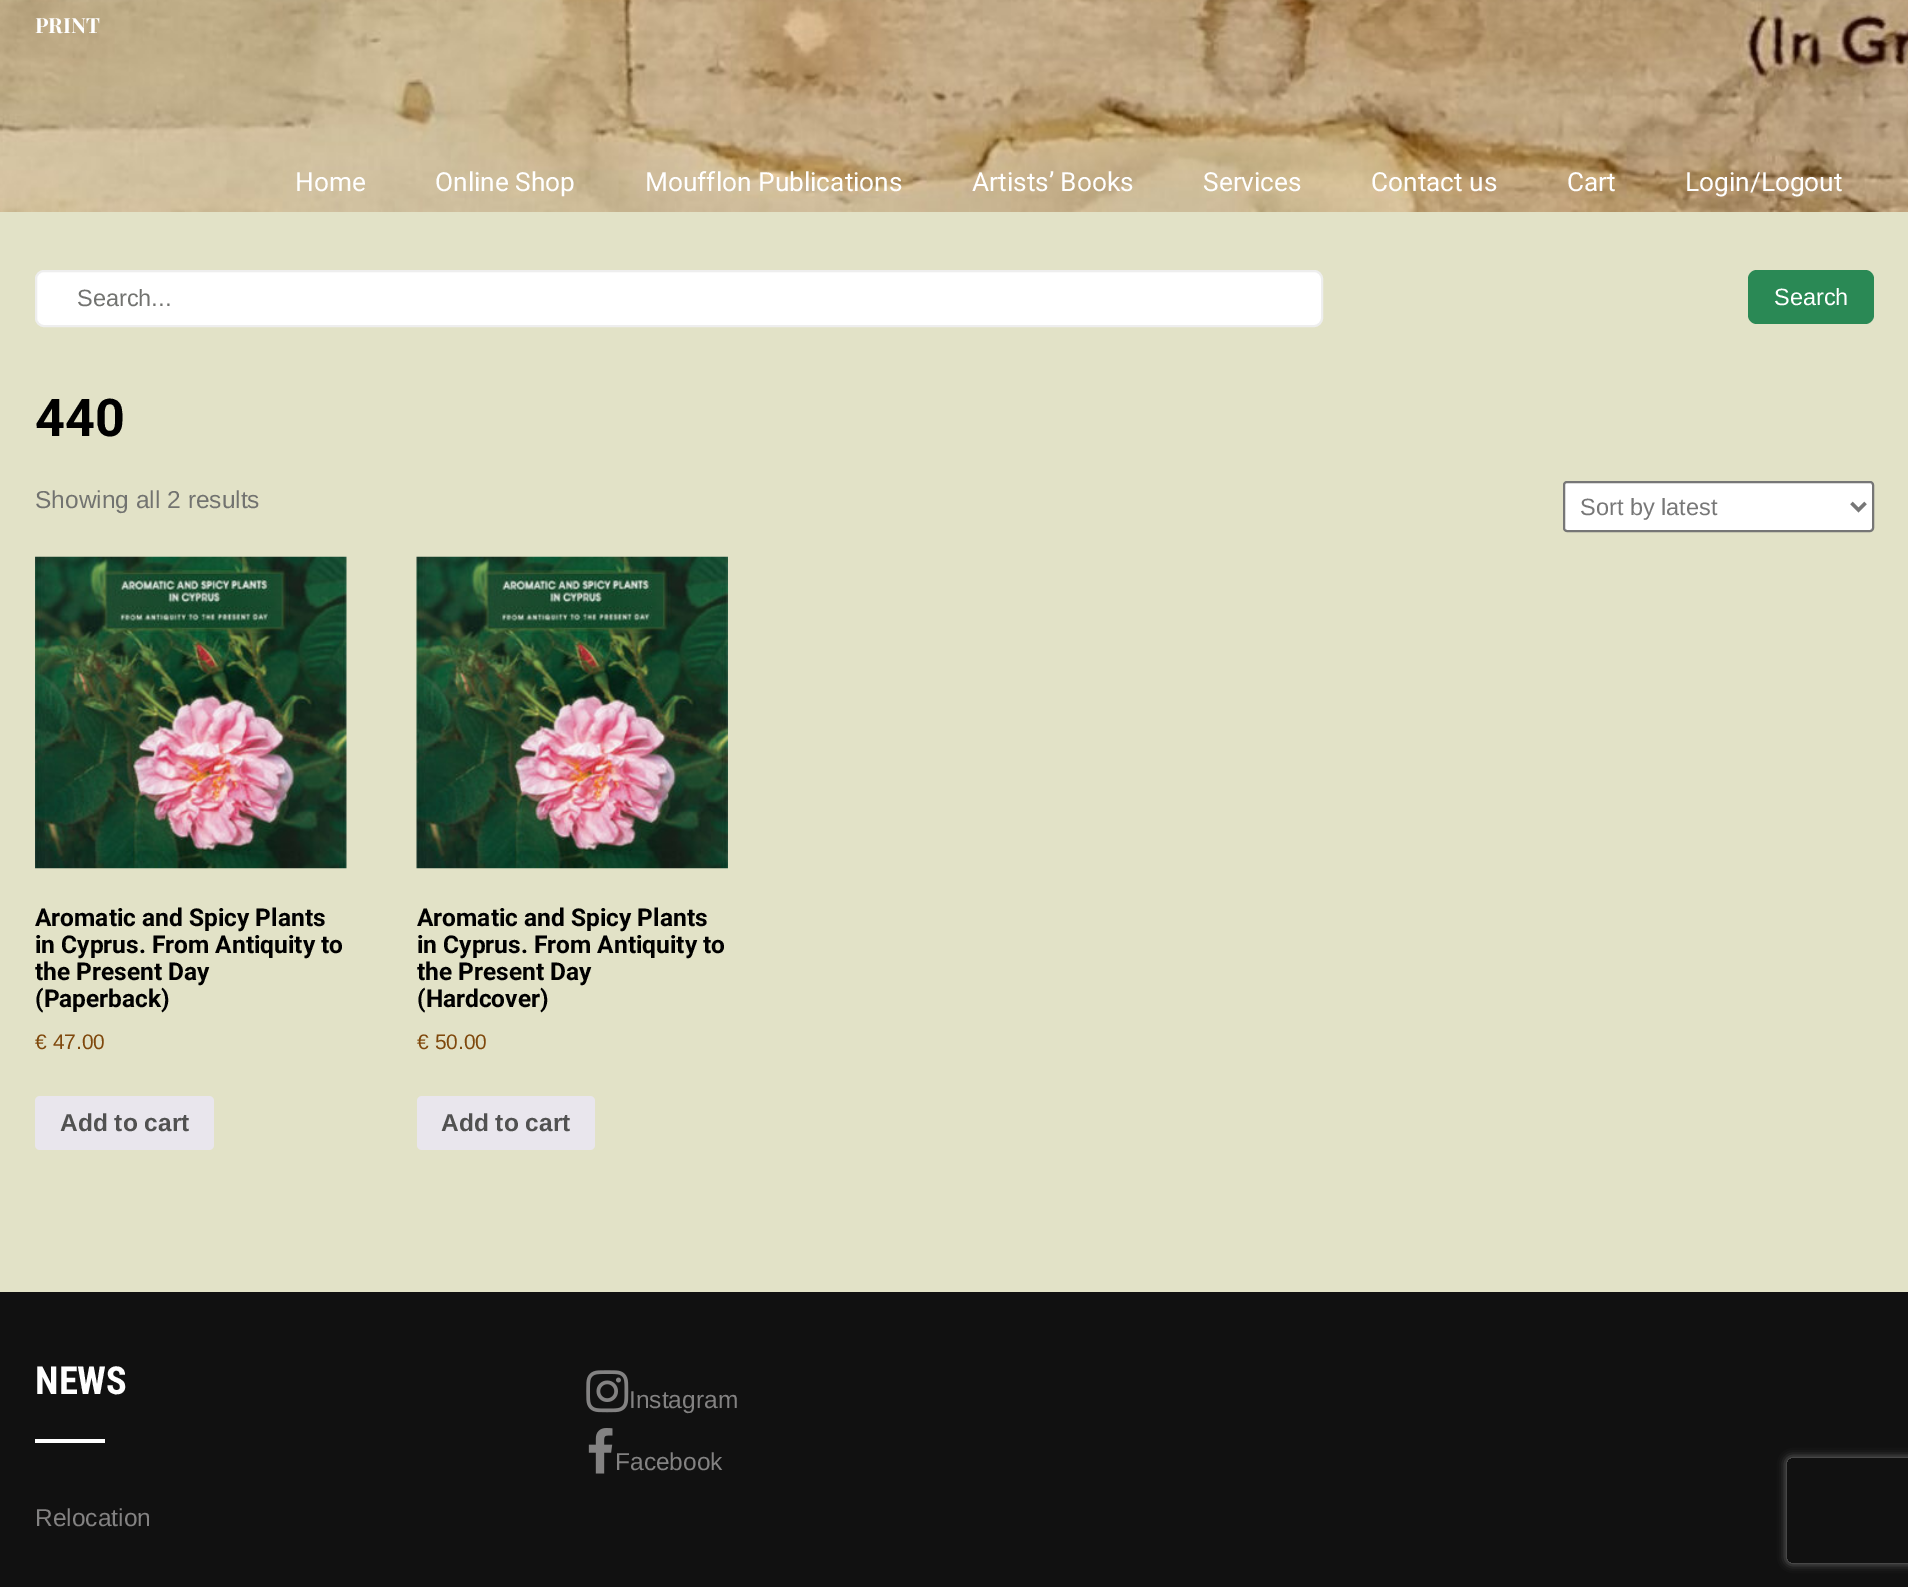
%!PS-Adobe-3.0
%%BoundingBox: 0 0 1908 1587
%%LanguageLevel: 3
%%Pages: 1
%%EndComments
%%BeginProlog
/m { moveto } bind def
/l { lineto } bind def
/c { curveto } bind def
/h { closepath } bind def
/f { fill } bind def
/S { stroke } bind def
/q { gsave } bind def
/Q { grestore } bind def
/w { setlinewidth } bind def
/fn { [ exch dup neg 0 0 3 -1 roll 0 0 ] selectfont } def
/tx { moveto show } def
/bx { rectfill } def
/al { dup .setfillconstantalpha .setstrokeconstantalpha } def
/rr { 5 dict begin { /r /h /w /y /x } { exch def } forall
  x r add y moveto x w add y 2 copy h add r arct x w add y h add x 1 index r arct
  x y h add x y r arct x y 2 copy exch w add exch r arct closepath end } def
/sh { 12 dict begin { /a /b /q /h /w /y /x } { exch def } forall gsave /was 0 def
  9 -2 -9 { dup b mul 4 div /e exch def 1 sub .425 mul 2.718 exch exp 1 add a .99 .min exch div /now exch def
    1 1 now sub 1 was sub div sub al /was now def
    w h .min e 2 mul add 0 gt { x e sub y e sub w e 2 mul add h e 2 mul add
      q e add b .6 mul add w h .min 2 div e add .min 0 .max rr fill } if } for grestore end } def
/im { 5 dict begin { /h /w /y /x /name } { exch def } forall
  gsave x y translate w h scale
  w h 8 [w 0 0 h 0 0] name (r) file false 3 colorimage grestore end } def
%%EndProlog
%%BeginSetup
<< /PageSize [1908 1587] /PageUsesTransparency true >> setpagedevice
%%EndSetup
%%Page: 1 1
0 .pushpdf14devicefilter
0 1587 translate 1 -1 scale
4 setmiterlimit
0.886 0.886 0.78 setrgbcolor
0 0 1908 1587 bx
(image0.raw) 0 0 1908 212 im
/PlayfairDisplay-Bold 21 fn
1 setgray
(PRINT) 35 33 tx
/Roboto-Regular 26.25 fn
(Home) 295 191 tx
(Online Shop) 435 191 tx
(Moufflon Publications) 645 191 tx
(Artists’ Books) 972 191 tx
(Services) 1203 191 tx
(Contact us) 1371 191 tx
(Cart) 1567 191 tx
(Login/Logout) 1685 191 tx
36 271 1286 55 8 rr q f Q
0.933 setgray
2 w
S
/LiberationSans-Regular 23.5 fn
0.447 0.451 0.439 setrgbcolor
(Search...) 77 306 tx
0.165 0.537 0.333 setrgbcolor
1748 270 126 54 9 rr f
1 setgray
(Search) 1774 305 tx
/Roboto-Bold 52 fn
0 setgray
(440) 35 436 tx
/LiberationSans-Regular 24.5 fn
0.447 0.451 0.439 setrgbcolor
(Showing all 2 results) 35 508 tx
1 setgray
1564 482 309 49 3 rr q f Q
0.463 setgray
S
0.467 setgray
3.5 w
1851.5 503 m 1858.5 510 l 1865.5 503 l S
/LiberationSans-Regular 23.5 fn
(Sort by latest) 1580 515 tx
(image1.raw) 35 556 312 313 im
/Roboto-Bold 24.5 fn
0 setgray
(Aromatic and Spicy Plants) 35 926 tx
(in Cyprus. From Antiquity to) 35 953 tx
(the Present Day) 35 980 tx
(\(Paperback\)) 35 1007 tx
/LiberationSans-Regular 21 fn
0.498 0.282 0.047 setrgbcolor
(€ 47.00) 35 1049 tx
0.914 0.902 0.929 setrgbcolor
35 1096 179 54 5 rr f
/LiberationSans-Bold 24.5 fn
0.318 setgray
(Add to cart) 60 1131 tx
(image2.raw) 416 556 312 313 im
/Roboto-Bold 24.5 fn
0 setgray
(Aromatic and Spicy Plants) 417 926 tx
(in Cyprus. From Antiquity to) 417 953 tx
(the Present Day) 417 980 tx
(\(Hardcover\)) 417 1007 tx
/LiberationSans-Regular 21 fn
0.498 0.282 0.047 setrgbcolor
(€ 50.00) 417 1049 tx
0.914 0.902 0.929 setrgbcolor
417 1096 178 54 5 rr f
/LiberationSans-Bold 24.5 fn
0.318 setgray
(Add to cart) 441 1131 tx
0.067 setgray
0 1292 1908 295 bx
/RobotoCondensed-Bold 38.5 fn
1 setgray
(NEWS) 35 1394 tx
35 1439 70 4 bx
/LiberationSans-Regular 24.5 fn
0.514 0.51 0.51 setrgbcolor
(Relocation) 35 1526 tx
(image3.raw) 586 1370 43 43 im
(Instagram) 629 1408 tx
(image4.raw) 588 1428 25 46 im
(Facebook) 615 1470 tx
q
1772 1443 m 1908 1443 l 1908 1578 l 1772 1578 l h 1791 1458 m 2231 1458 l 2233 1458 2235 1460 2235 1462 c 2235 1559 l 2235 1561 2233 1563 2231 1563 c 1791 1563 l 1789 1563 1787 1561 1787 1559 c 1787 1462 l 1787 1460 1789 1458 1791 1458 c h eoclip newpath
0.502 setgray
1787 1458 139 105 4 4.5 1 sh
Q
.poppdf14devicefilter showpage
%%EOF
